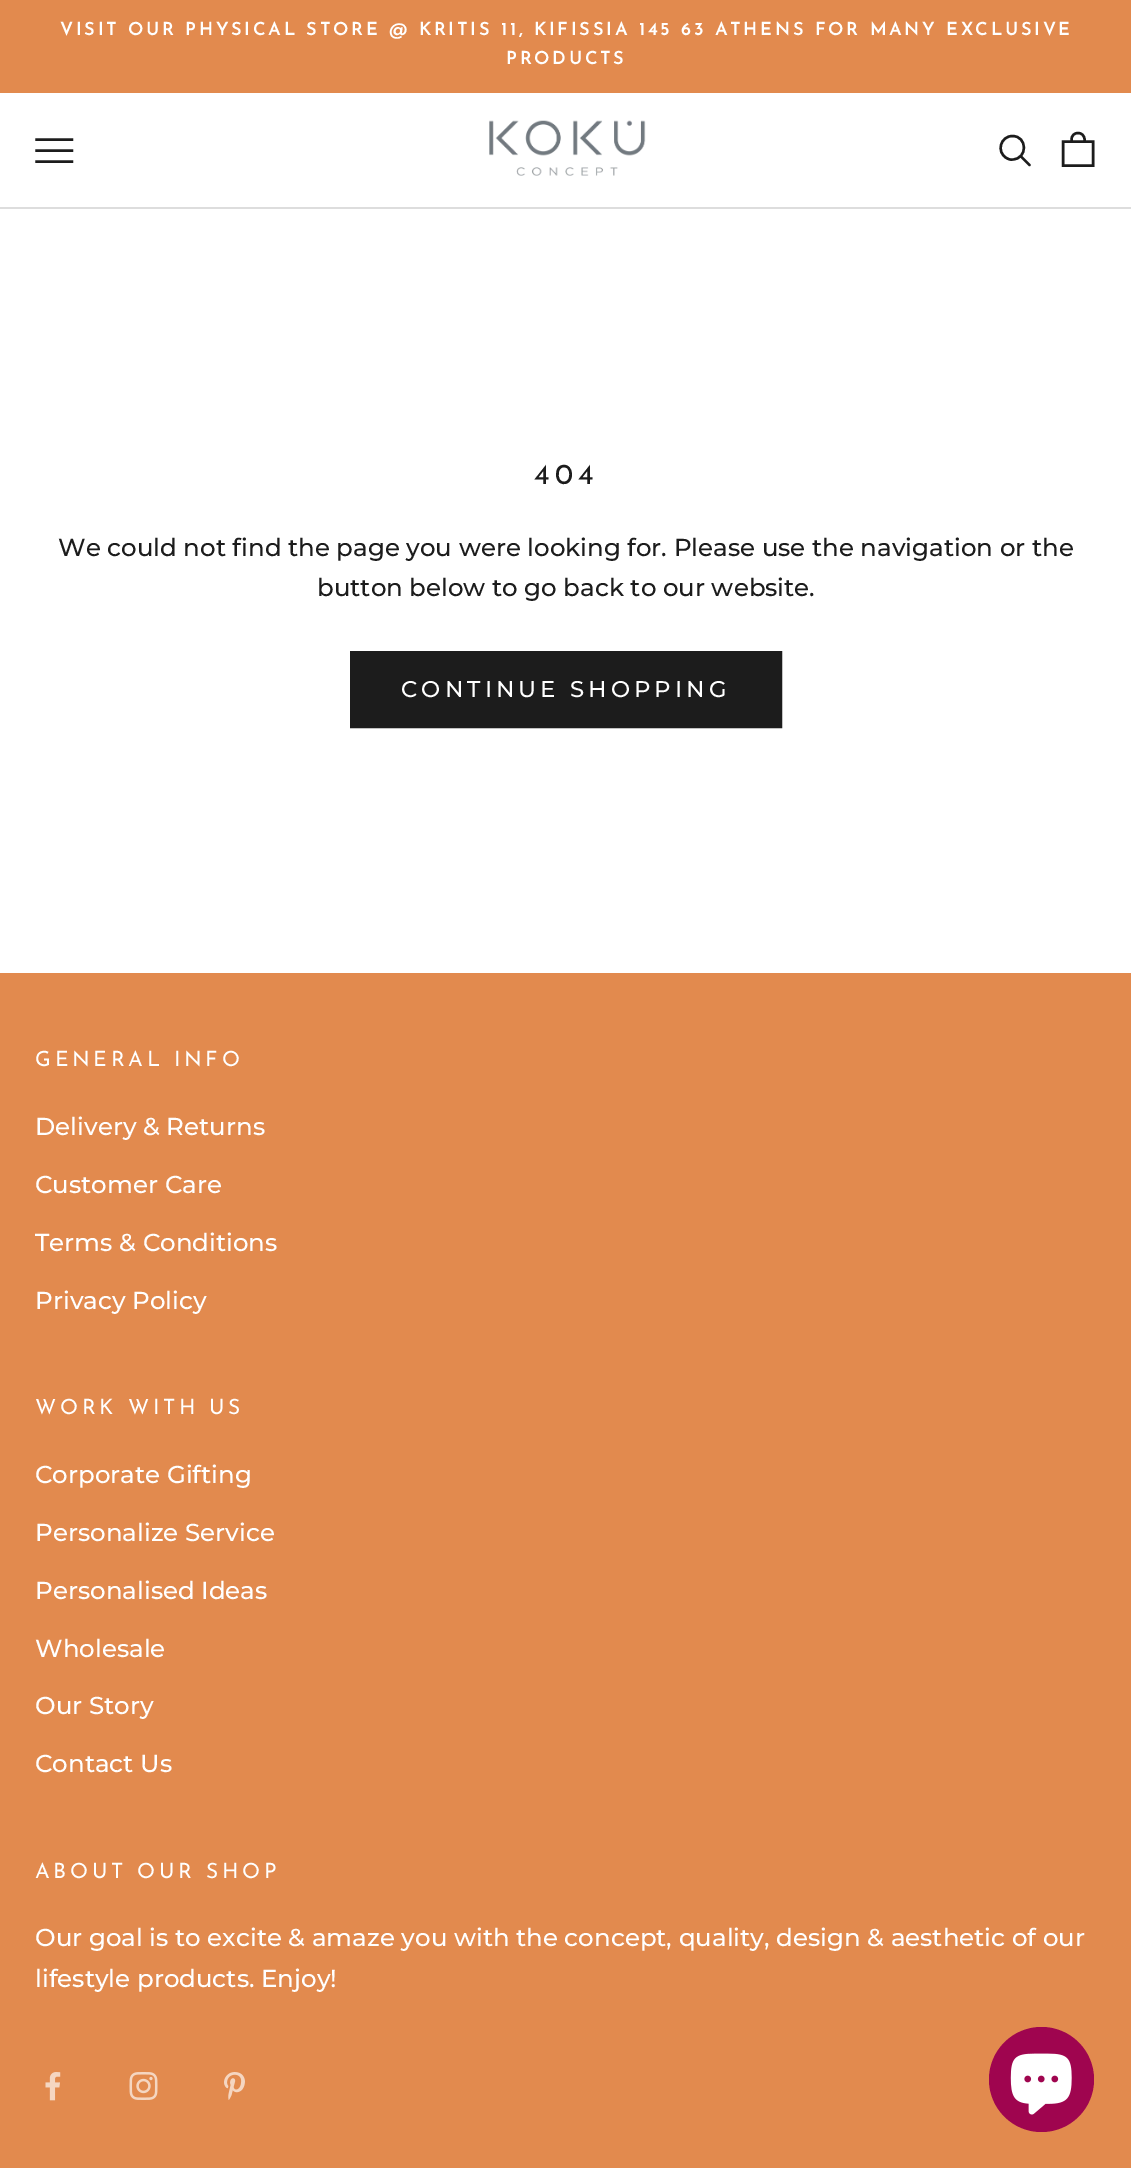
%!PS-Adobe-3.0
%%BoundingBox: 0 0 1131 2168
%%LanguageLevel: 3
%%Pages: 1
%%EndComments
%%BeginProlog
/m { moveto } bind def
/l { lineto } bind def
/c { curveto } bind def
/h { closepath } bind def
/f { fill } bind def
/S { stroke } bind def
/q { gsave } bind def
/Q { grestore } bind def
/w { setlinewidth } bind def
/fn { [ exch dup neg 0 0 3 -1 roll 0 0 ] selectfont } def
/tx { moveto show } def
/bx { rectfill } def
/ci { newpath 0 360 arc closepath } def
/im { 5 dict begin { /h /w /y /x /name } { exch def } forall
  gsave x y translate w h scale
  w h 8 [w 0 0 h 0 0] name (r) file false 3 colorimage grestore end } def
%%EndProlog
%%BeginSetup
<< /PageSize [1131 2168] >> setpagedevice
%%EndSetup
%%Page: 1 1
0 2168 translate 1 -1 scale
4 setmiterlimit
1 setgray
0 0 1131 2168 bx
0.886 0.541 0.306 setrgbcolor
0 0 1131 93 bx
/JosefinSans-Bold 17.5 fn
1 setgray
60 35 m 3.15 0 (VISIT OUR PHYSICAL STORE @ KRITIS 11, KIFISSIA 145 63 ATHENS FOR MANY EXCLUSIVE) ashow
506 64 m 3.15 0 (PRODUCTS) ashow
0.867 setgray
0 207 1131 2 bx
0.11 setgray
2.4 w
2 setlinecap
36.5 161.5 m 72 161.5 l 36.5 150.5 m 72 150.5 l 36.5 139.5 m 72 139.5 l S
(image0.raw) 489 120 157 56 im
0 setlinecap
1012.5 136 m 1000.5 136 996 152 1006.5 158 c 1008 159 1010.5 160 1012.5 159.5 c 1028 159 1027.5 136 1012.5 136 c h S
1 setlinecap
1021 156.5 m 1029.5 165 l S
0 setlinecap
1093 165.5 m 1093 141.5 l 1063 141.5 l 1063 165.5 l h 1071.5 141 m 1071.5 139.5 l 1071.5 135.5 1074.5 133 1078 133 c 1081.5 133 1084.5 135.5 1084.5 139.5 c 1084.5 141 l S
/JosefinSans-Regular 29 fn
534 484 m 5 0 (404) ashow
/Montserrat-Medium 24.5 fn
(We could not find the page you were looking for. Please use the navigation or the) 58 556 tx
(button below to go back to our website.) 317 596 tx
351 652 m 781 652 l 781 727 l 351 727 l h q f Q
2 w
S
/Montserrat-Medium 22.75 fn
1 setgray
401 697 m 4.1 0 (CONTINUE SHOPPING) ashow
0.886 0.541 0.306 setrgbcolor
0 973 1131 1195 bx
/JosefinSans-Regular 21 fn
1 setgray
35 1066 m 3.75 0 (GENERAL INFO) ashow
/Montserrat-Medium 24.5 fn
(Delivery & Returns) 35 1135 tx
(Customer Care) 35 1193 tx
(Terms & Conditions) 35 1251 tx
(Privacy Policy) 35 1309 tx
/JosefinSans-Regular 21 fn
35 1414 m 3.75 0 (WORK WITH US) ashow
/Montserrat-Medium 24.5 fn
(Corporate Gifting) 35 1483 tx
(Personalize Service) 35 1541 tx
(Personalised Ideas) 35 1599 tx
(Wholesale) 35 1657 tx
(Our Story) 35 1714 tx
(Contact Us) 35 1772 tx
/JosefinSans-Regular 21 fn
35 1878 m 3.75 0 (ABOUT OUR SHOP) ashow
/Montserrat-Medium 24.5 fn
(Our goal is to excite & amaze you with the concept, quality, design & aesthetic of our) 35 1946 tx
(lifestyle products. Enjoy!) 35 1987 tx
(image1.raw) 45 2072 16 29 im
(image2.raw) 129 2072 29 28 im
(image3.raw) 224 2072 21 28 im
0.624 0.02 0.31 setrgbcolor
1041.5 2079.5 52.5 ci f
(image4.raw) 1010 2053 62 62 im
showpage
%%EOF
